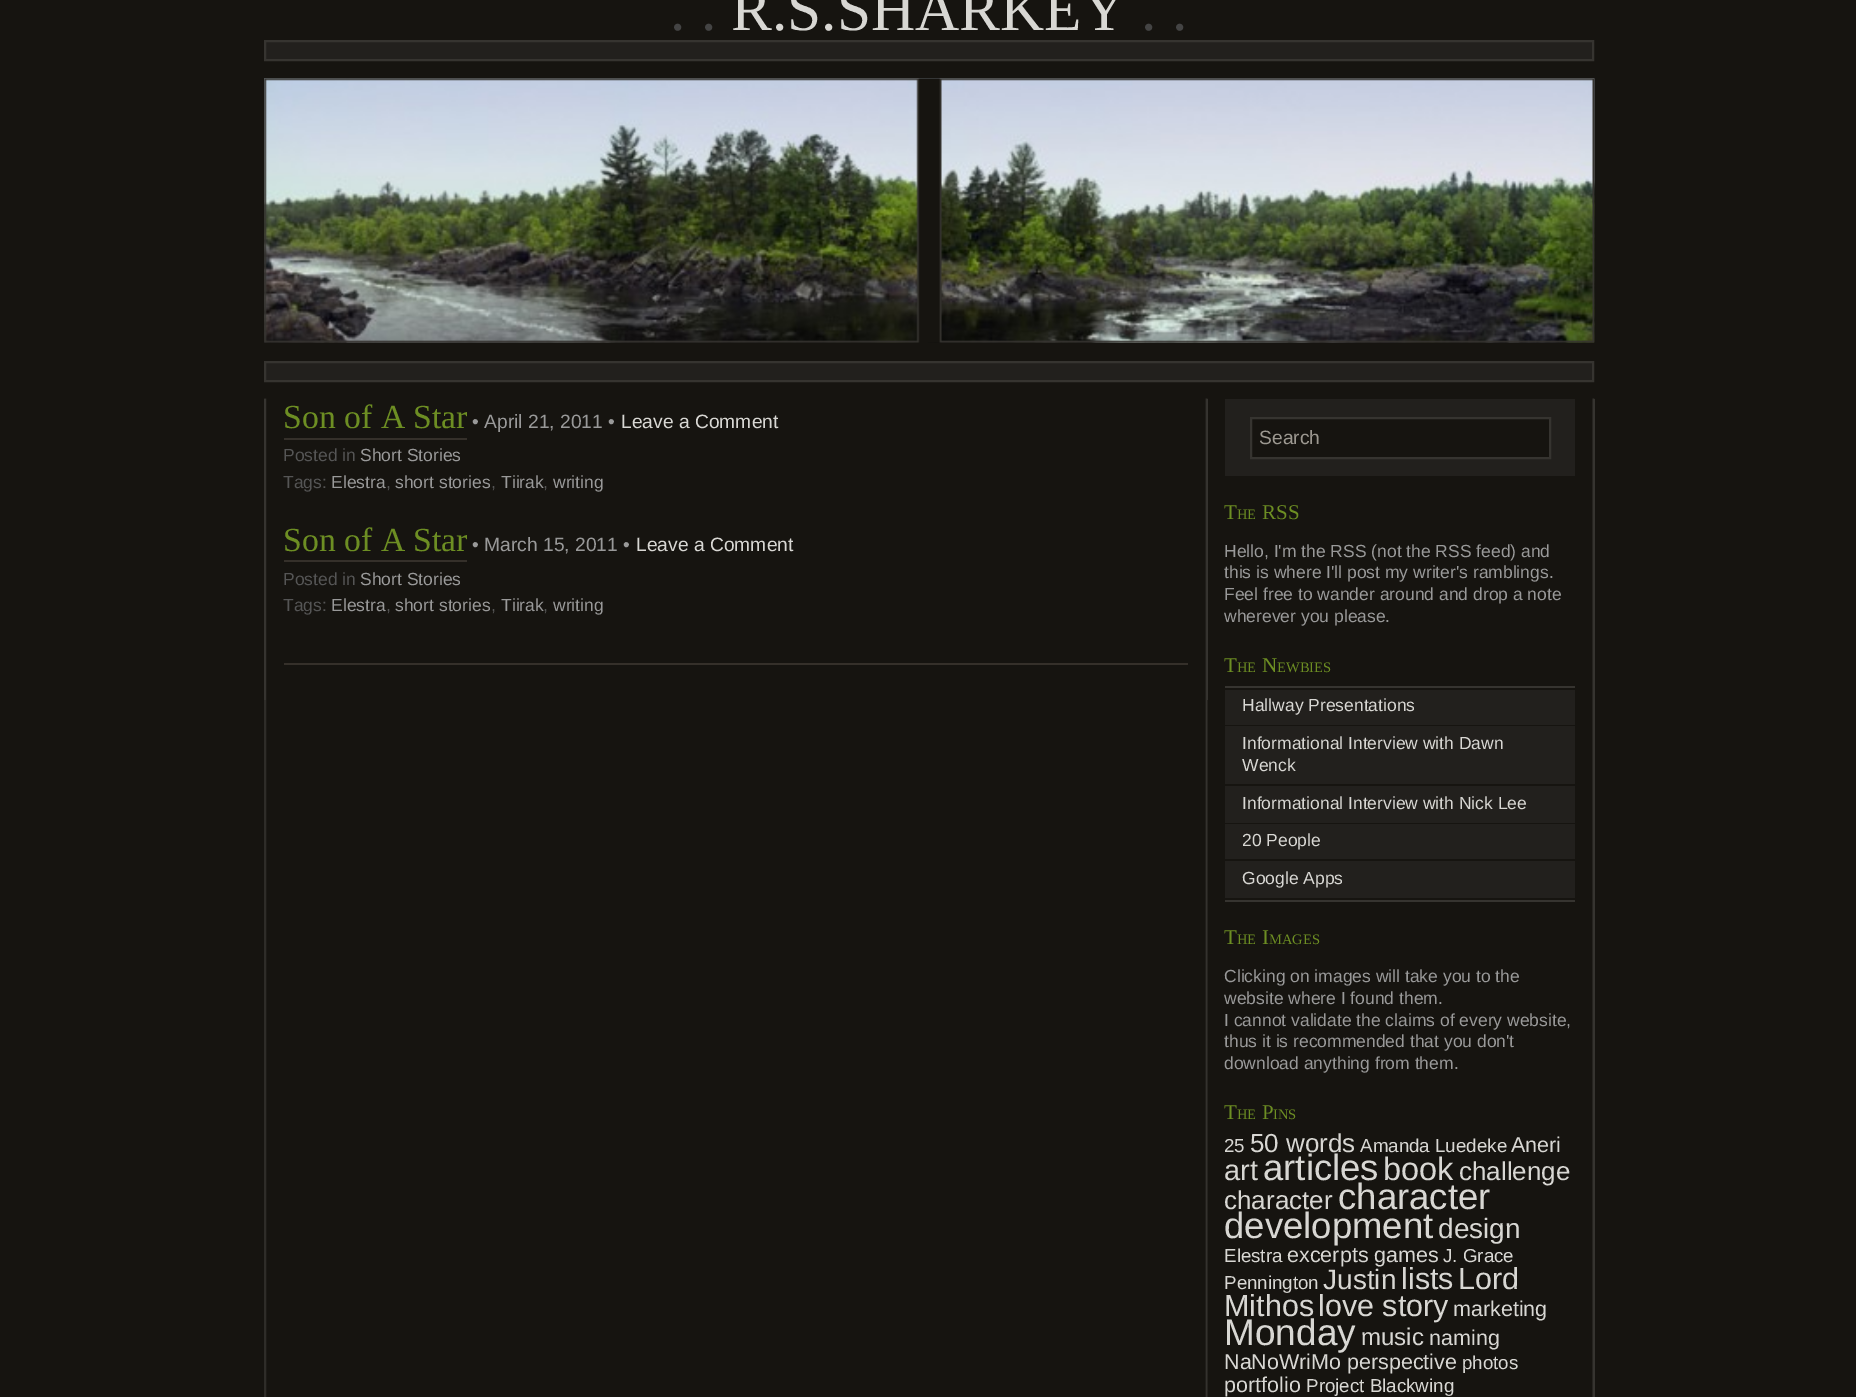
%!PS-Adobe-3.0
%%BoundingBox: 0 0 1856 1397
%%LanguageLevel: 3
%%Pages: 1
%%EndComments
%%BeginProlog
/m { moveto } bind def
/l { lineto } bind def
/h { closepath } bind def
/f { fill } bind def
/S { stroke } bind def
/q { gsave } bind def
/Q { grestore } bind def
/w { setlinewidth } bind def
/fn { [ exch dup neg 0 0 3 -1 roll 0 0 ] selectfont } def
/tx { moveto show } def
/bx { rectfill } def
/im { 5 dict begin { /h /w /y /x /name } { exch def } forall
  gsave x y translate w h scale
  w h 8 [w 0 0 h 0 0] name (r) file false 3 colorimage grestore end } def
%%EndProlog
%%BeginSetup
<< /PageSize [1856 1397] >> setpagedevice
%%EndSetup
%%Page: 1 1
0 1397 translate 1 -1 scale
4 setmiterlimit
0.086 0.078 0.063 setrgbcolor
0 0 1856 1397 bx
/LiberationSerif-Regular 61.25 fn
0.267 setgray
(. .) 670 30 tx
0.847 0.843 0.827 setrgbcolor
(R.S.SHARKEY) 731 30 tx
0.267 setgray
(. .) 1141 30 tx
0.133 0.125 0.114 setrgbcolor
265 41 m 1593 41 l 1593 60 l 265 60 l h q f Q
0.212 0.204 0.188 setrgbcolor
2 w
S
(image0.raw) 264 78 1331 265 im
(image1.raw) 264 78 1331 265 im
0.133 0.125 0.114 setrgbcolor
265 362 m 1593 362 l 1593 381 l 265 381 l h q f Q
0.212 0.204 0.188 setrgbcolor
S
(image2.raw) 264 398 1331 999 im
1207 399 1 301 bx
264 399 2 301 bx
/LiberationSerif-Regular 33.75 fn
0.427 0.557 0.137 setrgbcolor
(Son of A Star) 283 428 tx
0.208 0.188 0.165 setrgbcolor
284 438 183 2 bx
/LiberationSans-Regular 19.25 fn
0.6 setgray
(• April 21, 2011 •) 472 428 tx
0.847 0.843 0.827 setrgbcolor
(Leave a Comment) 621 428 tx
/LiberationSans-Regular 17.5 fn
0.333 setgray
(Posted in) 283 461 tx
0.6 setgray
(Short Stories) 360 461 tx
0.333 setgray
(Tags:) 283 488 tx
0.6 setgray
(Elestra) 331 488 tx
0.333 setgray
(,) 386 488 tx
0.6 setgray
(short stories) 395 488 tx
0.333 setgray
(,) 491 488 tx
0.6 setgray
(Tiirak) 501 488 tx
0.333 setgray
(,) 543 488 tx
0.6 setgray
(writing) 553 488 tx
/LiberationSerif-Regular 33.75 fn
0.427 0.557 0.137 setrgbcolor
(Son of A Star) 283 551 tx
0.208 0.188 0.165 setrgbcolor
284 560 183 2 bx
/LiberationSans-Regular 19.25 fn
0.6 setgray
(• March 15, 2011 •) 472 551 tx
0.847 0.843 0.827 setrgbcolor
(Leave a Comment) 636 551 tx
/LiberationSans-Regular 17.5 fn
0.333 setgray
(Posted in) 283 585 tx
0.6 setgray
(Short Stories) 360 585 tx
0.333 setgray
(Tags:) 283 611 tx
0.6 setgray
(Elestra) 331 611 tx
0.333 setgray
(,) 386 611 tx
0.6 setgray
(short stories) 395 611 tx
0.333 setgray
(,) 491 611 tx
0.6 setgray
(Tiirak) 501 611 tx
0.333 setgray
(,) 543 611 tx
0.6 setgray
(writing) 553 611 tx
0.208 0.188 0.165 setrgbcolor
284 663 904 2 bx
0.212 0.204 0.188 setrgbcolor
1594 399 1 998 bx
0.133 0.125 0.114 setrgbcolor
1225 399 350 77 bx
0.086 0.078 0.063 setrgbcolor
1251 418 m 1550 418 l 1550 458 l 1251 458 l h q f Q
0.212 0.204 0.188 setrgbcolor
S
/LiberationSans-Regular 19.25 fn
0.612 0.596 0.565 setrgbcolor
(Search) 1259 444 tx
/LiberationSerif-Regular 21 fn
0.427 0.557 0.137 setrgbcolor
(T) 1224 519 tx
/LiberationSerif-Regular 14.5 fn
(HE) 1237 519 tx
/LiberationSerif-Regular 21 fn
(RSS) 1262 519 tx
/LiberationSans-Regular 17.5 fn
0.6 setgray
(Hello, I'm the RSS \(not the RSS feed\) and) 1224 557 tx
(this is where I'll post my writer's ramblings.) 1224 578 tx
(Feel free to wander around and drop a note) 1224 600 tx
(wherever you please.) 1224 622 tx
/LiberationSerif-Regular 21 fn
0.427 0.557 0.137 setrgbcolor
(T) 1224 672 tx
/LiberationSerif-Regular 14.5 fn
(HE) 1237 672 tx
/LiberationSerif-Regular 21 fn
(N) 1262 672 tx
/LiberationSerif-Regular 14.5 fn
(EWBIES) 1277 672 tx
0.212 0.204 0.188 setrgbcolor
1225 686 350 2 bx
1225 900 350 2 bx
0.133 0.125 0.114 setrgbcolor
1225 690 350 35 bx
/LiberationSans-Regular 17.5 fn
0.847 0.843 0.827 setrgbcolor
(Hallway Presentations) 1242 711 tx
0.133 0.125 0.114 setrgbcolor
1225 726 350 58 bx
0.847 0.843 0.827 setrgbcolor
(Informational Interview with Dawn) 1242 749 tx
(Wenck) 1242 771 tx
0.133 0.125 0.114 setrgbcolor
1225 786 350 37 bx
0.847 0.843 0.827 setrgbcolor
(Informational Interview with Nick Lee) 1242 809 tx
0.133 0.125 0.114 setrgbcolor
1225 824 350 35 bx
0.847 0.843 0.827 setrgbcolor
(20 People) 1242 846 tx
0.133 0.125 0.114 setrgbcolor
1225 861 350 37 bx
0.847 0.843 0.827 setrgbcolor
(Google Apps) 1242 884 tx
/LiberationSerif-Regular 21 fn
0.427 0.557 0.137 setrgbcolor
(T) 1224 944 tx
/LiberationSerif-Regular 14.5 fn
(HE) 1237 944 tx
/LiberationSerif-Regular 21 fn
(I) 1262 944 tx
/LiberationSerif-Regular 14.5 fn
(MAGES) 1269 944 tx
/LiberationSans-Regular 17.5 fn
0.6 setgray
(Clicking on images will take you to the) 1224 982 tx
(website where I found them.) 1224 1004 tx
(I cannot validate the claims of every website,) 1224 1026 tx
(thus it is recommended that you don't) 1224 1047 tx
(download anything from them.) 1224 1069 tx
/LiberationSerif-Regular 21 fn
0.427 0.557 0.137 setrgbcolor
(T) 1224 1119 tx
/LiberationSerif-Regular 14.5 fn
(HE) 1237 1119 tx
/LiberationSerif-Regular 21 fn
(P) 1262 1119 tx
/LiberationSerif-Regular 14.5 fn
(INS) 1273 1119 tx
/LiberationSans-Regular 18.75 fn
0.847 0.843 0.827 setrgbcolor
(25) 1224 1152 tx
/LiberationSans-Regular 26 fn
(50 words) 1250 1152 tx
/LiberationSans-Regular 18.75 fn
(Amanda Luedeke) 1360 1152 tx
/LiberationSans-Regular 21.5 fn
(Aneri) 1511 1152 tx
/LiberationSans-Regular 29 fn
(art) 1224 1180 tx
/LiberationSans-Regular 36.5 fn
(articles) 1263 1180 tx
/LiberationSans-Regular 32.5 fn
(book) 1383 1180 tx
/LiberationSans-Regular 26 fn
(challenge) 1459 1180 tx
(character) 1224 1209 tx
/LiberationSans-Regular 36.5 fn
(character) 1338 1209 tx
(development) 1224 1238 tx
/LiberationSans-Regular 28 fn
(design) 1438 1238 tx
/LiberationSans-Regular 18.75 fn
(Elestra) 1224 1262 tx
/LiberationSans-Regular 21.5 fn
(excerpts) 1287 1262 tx
(games) 1374 1262 tx
/LiberationSans-Regular 18.75 fn
(J. Grace) 1443 1262 tx
(Pennington) 1224 1289 tx
/LiberationSans-Regular 28 fn
(Justin) 1323 1289 tx
/LiberationSans-Regular 30.5 fn
(lists) 1401 1289 tx
(Lord) 1458 1289 tx
(Mithos) 1224 1316 tx
(love story) 1318 1316 tx
/LiberationSans-Regular 21.5 fn
(marketing) 1453 1316 tx
/LiberationSans-Regular 37 fn
(Monday) 1224 1345 tx
/LiberationSans-Regular 24 fn
(music) 1361 1345 tx
/LiberationSans-Regular 21.5 fn
(naming) 1429 1345 tx
(NaNoWriMo) 1224 1369 tx
(perspective) 1347 1369 tx
/LiberationSans-Regular 18.75 fn
(photos) 1462 1369 tx
/LiberationSans-Regular 21.5 fn
(portfolio) 1224 1392 tx
/LiberationSans-Regular 18.75 fn
(Project Blackwing) 1306 1392 tx
showpage
%%EOF
